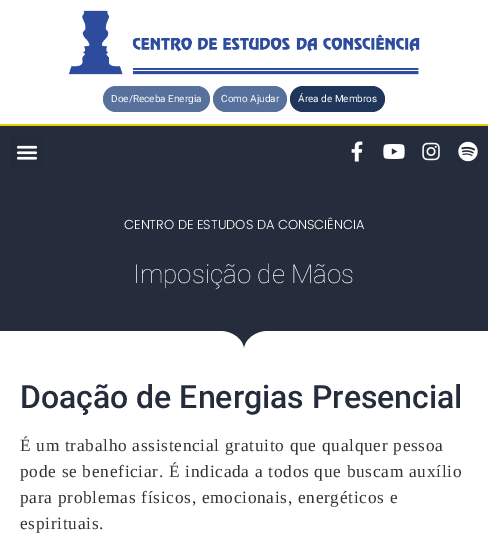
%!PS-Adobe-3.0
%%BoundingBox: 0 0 488 544
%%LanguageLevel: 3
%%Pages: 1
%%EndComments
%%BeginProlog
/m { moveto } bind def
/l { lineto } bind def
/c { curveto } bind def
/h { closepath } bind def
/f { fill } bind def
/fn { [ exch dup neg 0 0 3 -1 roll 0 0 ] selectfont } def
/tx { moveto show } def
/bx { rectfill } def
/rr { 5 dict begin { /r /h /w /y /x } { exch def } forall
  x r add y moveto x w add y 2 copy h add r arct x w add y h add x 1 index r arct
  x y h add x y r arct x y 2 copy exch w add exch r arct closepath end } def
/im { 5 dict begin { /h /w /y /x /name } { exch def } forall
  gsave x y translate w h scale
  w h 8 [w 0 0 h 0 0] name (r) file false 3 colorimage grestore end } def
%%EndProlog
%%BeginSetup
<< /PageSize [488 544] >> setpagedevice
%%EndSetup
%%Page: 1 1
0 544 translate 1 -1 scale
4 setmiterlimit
1 setgray
0 0 488 544 bx
0.145 0.176 0.239 setrgbcolor
0 126 488 53 bx
(image0.raw) 69 10 351 65 im
0.341 0.439 0.612 setrgbcolor
103 86 107 26 13 rr f
/Roboto-Regular 10 fn
1 setgray
(Doe/Receba Energia) 111 102 tx
0.341 0.439 0.612 setrgbcolor
213 86 74 26 13 rr f
1 setgray
(Como Ajudar) 221 102 tx
0.122 0.208 0.353 setrgbcolor
290 86 95 26 13 rr f
1 setgray
(Área de Membros) 298 102 tx
0.878 0.82 0 setrgbcolor
0 124 488 2 bx
0.137 0.169 0.227 setrgbcolor
10 136 33 33 3 rr f
(image1.raw) 16 145 22 15 im
(image2.raw) 351 141 12 21 im
(image3.raw) 383 144 22 15 im
(image4.raw) 422 142 18 19 im
(image5.raw) 458 141 20 21 im
0.145 0.176 0.235 setrgbcolor
0 179 488 171 bx
/Poppins-Light 13 fn
1 setgray
(CENTRO DE ESTUDOS DA CONSCIÊNCIA) 124 229 tx
/Roboto-Thin 26 fn
(Imposição de Mãos) 133 283 tx
268 331 m 255 331 244 340 244 350 c 244 340 233 331 220 331 c -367 331 l -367 351 l 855 351 l 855 331 l h f
/Roboto-Medium 32 fn
0.145 0.176 0.235 setrgbcolor
(Doação de Energias Presencial) 20 408 tx
/LiberationSerif-Regular 17.3 fn
0.2 setgray
20 451 m 0.73 0 (É um trabalho assistencial gratuito que qualquer pessoa) ashow
20 477 m 0.73 0 (pode se beneficiar. É indicada a todos que buscam auxílio) ashow
20 503 m 0.73 0 (para problemas físicos, emocionais, energéticos e) ashow
20 529 m 0.73 0 (espirituais.) ashow
showpage
%%EOF
